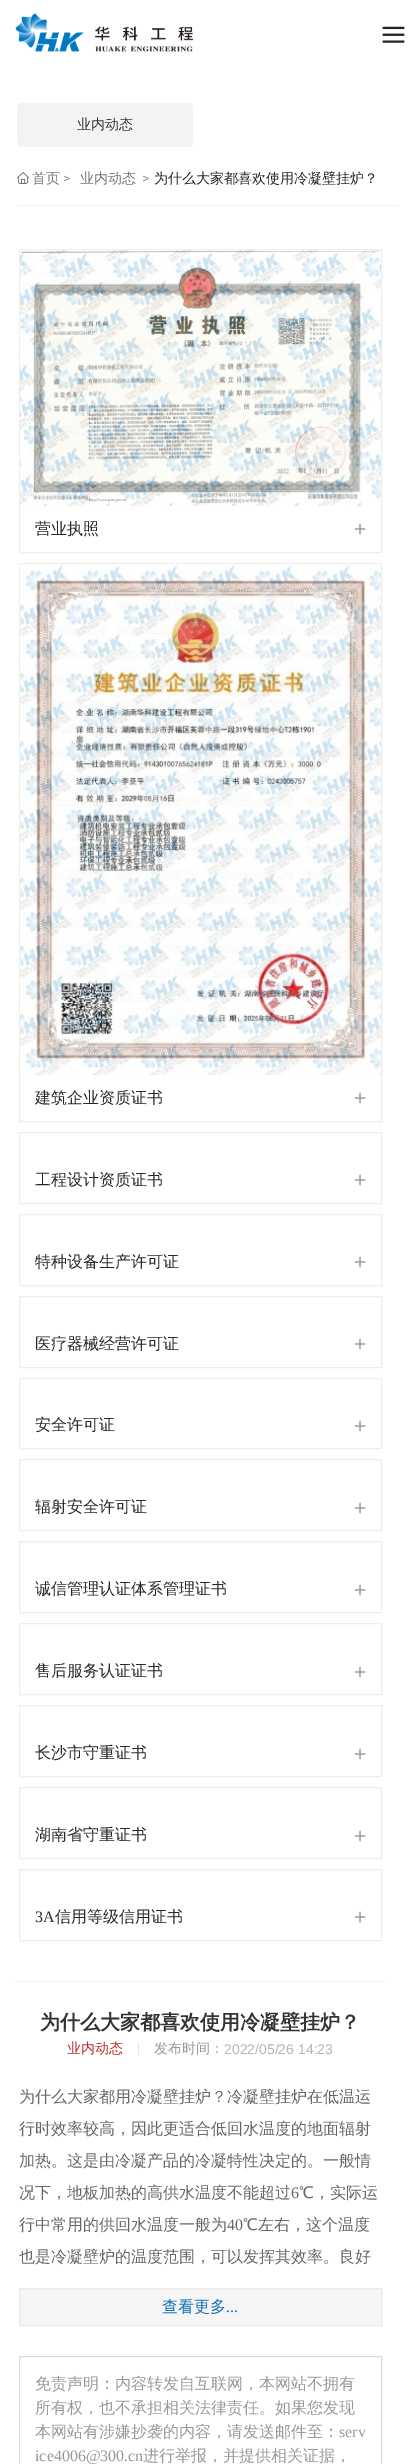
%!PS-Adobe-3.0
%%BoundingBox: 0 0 416 2464
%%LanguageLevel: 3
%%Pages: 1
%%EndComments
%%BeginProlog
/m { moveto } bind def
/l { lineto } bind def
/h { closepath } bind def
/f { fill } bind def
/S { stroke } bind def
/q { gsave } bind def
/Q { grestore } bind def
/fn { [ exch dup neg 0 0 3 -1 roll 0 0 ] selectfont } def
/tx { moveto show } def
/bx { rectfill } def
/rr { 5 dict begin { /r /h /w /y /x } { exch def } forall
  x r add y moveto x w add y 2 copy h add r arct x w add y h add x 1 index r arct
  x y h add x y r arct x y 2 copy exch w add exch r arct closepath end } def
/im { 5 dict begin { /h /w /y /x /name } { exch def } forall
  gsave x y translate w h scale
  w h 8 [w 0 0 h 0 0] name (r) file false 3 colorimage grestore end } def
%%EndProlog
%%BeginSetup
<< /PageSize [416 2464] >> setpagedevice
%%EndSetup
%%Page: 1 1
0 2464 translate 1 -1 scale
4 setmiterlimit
1 setgray
0 0 416 2464 bx
(image0.raw) 15 13 178 39 im
(image1.raw) 382 26 23 17 im
0.953 setgray
17 103 176 44 5 rr f
/WenQuanYiZenHei-Medium 14 fn
0.2 setgray
(业内动态) 77 129 tx
0.949 setgray
17 205 382 1 bx
(image2.raw) 17 172 12 12 im
0.424 0.459 0.49 setrgbcolor
(首页) 32 183 tx
/Roboto-Regular 14 fn
0.6 setgray
(>) 63 183 tx
/WenQuanYiZenHei-Medium 14 fn
0.424 0.459 0.49 setrgbcolor
(业内动态) 80 183 tx
/Roboto-Regular 14 fn
0.6 setgray
(>) 142 183 tx
/WenQuanYiZenHei-Medium 14 fn
0.129 0.145 0.161 setrgbcolor
(为什么大家都喜欢使用冷凝壁挂炉？) 154 183 tx
0.949 setgray
14 1981 373 1 bx
0.933 setgray
19.5 249.5 362 303 rectstroke
(image3.raw) 20 250 361 256 im
/WenQuanYiZenHei-Medium 16 fn
0.153 0.157 0.176 setrgbcolor
(营业执照) 35 534 tx
/LiberationSans-Regular 21 fn
0.6 setgray
(+) 354 536 tx
0.933 setgray
19.5 563.5 362 558 rectstroke
(image4.raw) 20 564 361 511 im
/WenQuanYiZenHei-Medium 16 fn
0.153 0.157 0.176 setrgbcolor
(建筑企业资质证书) 35 1103 tx
/LiberationSans-Regular 21 fn
0.6 setgray
(+) 354 1105 tx
0.933 setgray
19.5 1132.5 362 71 rectstroke
/WenQuanYiZenHei-Medium 16 fn
0.153 0.157 0.176 setrgbcolor
(工程设计资质证书) 35 1185 tx
/LiberationSans-Regular 21 fn
0.6 setgray
(+) 354 1187 tx
0.933 setgray
19.5 1214.5 362 71 rectstroke
/WenQuanYiZenHei-Medium 16 fn
0.153 0.157 0.176 setrgbcolor
(特种设备生产许可证) 35 1267 tx
/LiberationSans-Regular 21 fn
0.6 setgray
(+) 354 1269 tx
0.933 setgray
19.5 1296.5 362 71 rectstroke
/WenQuanYiZenHei-Medium 16 fn
0.153 0.157 0.176 setrgbcolor
(医疗器械经营许可证) 35 1349 tx
/LiberationSans-Regular 21 fn
0.6 setgray
(+) 354 1351 tx
0.933 setgray
19.5 1378.5 362 70 rectstroke
/WenQuanYiZenHei-Medium 16 fn
0.153 0.157 0.176 setrgbcolor
(安全许可证) 35 1430 tx
/LiberationSans-Regular 21 fn
0.6 setgray
(+) 354 1433 tx
0.933 setgray
19.5 1459.5 362 71 rectstroke
/WenQuanYiZenHei-Medium 16 fn
0.153 0.157 0.176 setrgbcolor
(辐射安全许可证) 35 1512 tx
/LiberationSans-Regular 21 fn
0.6 setgray
(+) 354 1515 tx
0.933 setgray
19.5 1541.5 362 71 rectstroke
/WenQuanYiZenHei-Medium 16 fn
0.153 0.157 0.176 setrgbcolor
(诚信管理认证体系管理证书) 35 1594 tx
/LiberationSans-Regular 21 fn
0.6 setgray
(+) 354 1597 tx
0.933 setgray
19.5 1623.5 362 71 rectstroke
/WenQuanYiZenHei-Medium 16 fn
0.153 0.157 0.176 setrgbcolor
(售后服务认证证书) 35 1676 tx
/LiberationSans-Regular 21 fn
0.6 setgray
(+) 354 1679 tx
0.933 setgray
19.5 1705.5 362 71 rectstroke
/WenQuanYiZenHei-Medium 16 fn
0.153 0.157 0.176 setrgbcolor
(长沙市守重证书) 35 1758 tx
/LiberationSans-Regular 21 fn
0.6 setgray
(+) 354 1761 tx
0.933 setgray
19.5 1787.5 362 71 rectstroke
/WenQuanYiZenHei-Medium 16 fn
0.153 0.157 0.176 setrgbcolor
(湖南省守重证书) 35 1840 tx
/LiberationSans-Regular 21 fn
0.6 setgray
(+) 354 1843 tx
0.933 setgray
19.5 1869.5 362 71 rectstroke
/LiberationSerif-Regular 16 fn
0.153 0.157 0.176 setrgbcolor
(3A) 35 1922 tx
/WenQuanYiZenHei-Medium 16 fn
(信用等级信用证书) 55 1922 tx
/LiberationSans-Regular 21 fn
0.6 setgray
(+) 354 1924 tx
/WenQuanYiZenHei-Bold 20 fn
0.2 setgray
(为什么大家都喜欢使用冷凝壁挂炉？) 40 2029 tx
/WenQuanYiZenHei-Medium 14 fn
0.733 0.157 0.153 setrgbcolor
(业内动态) 67 2053 tx
0.902 setgray
138 2042 1 14 bx
0.6 setgray
(发布时间：) 154 2053 tx
/LiberationSans-Regular 14 fn
0.71 setgray
(2022/05/26 14:23) 224 2054 tx
/WenQuanYiZenHei-Medium 16 fn
0.4 setgray
(为什么大家都用冷凝壁挂炉？冷凝壁挂炉在低温运) 19 2102 tx
(行时效率较高，因此更适合低回水温度的地面辐射) 19 2134 tx
(加热。这是由冷凝产品的冷凝特性决定的。一般情) 19 2166 tx
(况下，地板加热的高供水温度不能超过) 19 2198 tx
/LiberationSerif-Regular 16 fn
(6) 291 2198 tx
/WenQuanYiZenHei-Medium 16 fn
(℃，实际运) 299 2198 tx
(行中常用的供回水温度一般为) 19 2230 tx
/LiberationSerif-Regular 16 fn
(40) 227 2230 tx
/WenQuanYiZenHei-Medium 16 fn
(℃左右，这个温度) 243 2230 tx
(也是冷凝壁炉的温度范围，可以发挥其效率。良好) 19 2262 tx
0.961 setgray
19.5 2288.5 m 381.5 2288.5 l 381.5 2325.5 l 19.5 2325.5 l h q f Q
0.914 setgray
S
0.082 0.443 0.694 setrgbcolor
(查看更多) 162 2312 tx
/LiberationSerif-Regular 16 fn
(...) 226 2312 tx
0.867 setgray
19.5 2356.5 362 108 rectstroke
/WenQuanYiZenHei-Medium 16 fn
0.6 setgray
(免责声明：内容转发自互联网，本网站不拥有) 35 2389 tx
(所有权，也不承担相关法律责任。如果您发现) 35 2413 tx
(本网站有涉嫌抄袭的内容，请发送邮件至：) 35 2437 tx
/LiberationSerif-Regular 16 fn
(serv) 339 2437 tx
(ice4006@300.cn) 35 2461 tx
/WenQuanYiZenHei-Medium 16 fn
(进行举报，并提供相关证据，) 143 2461 tx
showpage
%%EOF
